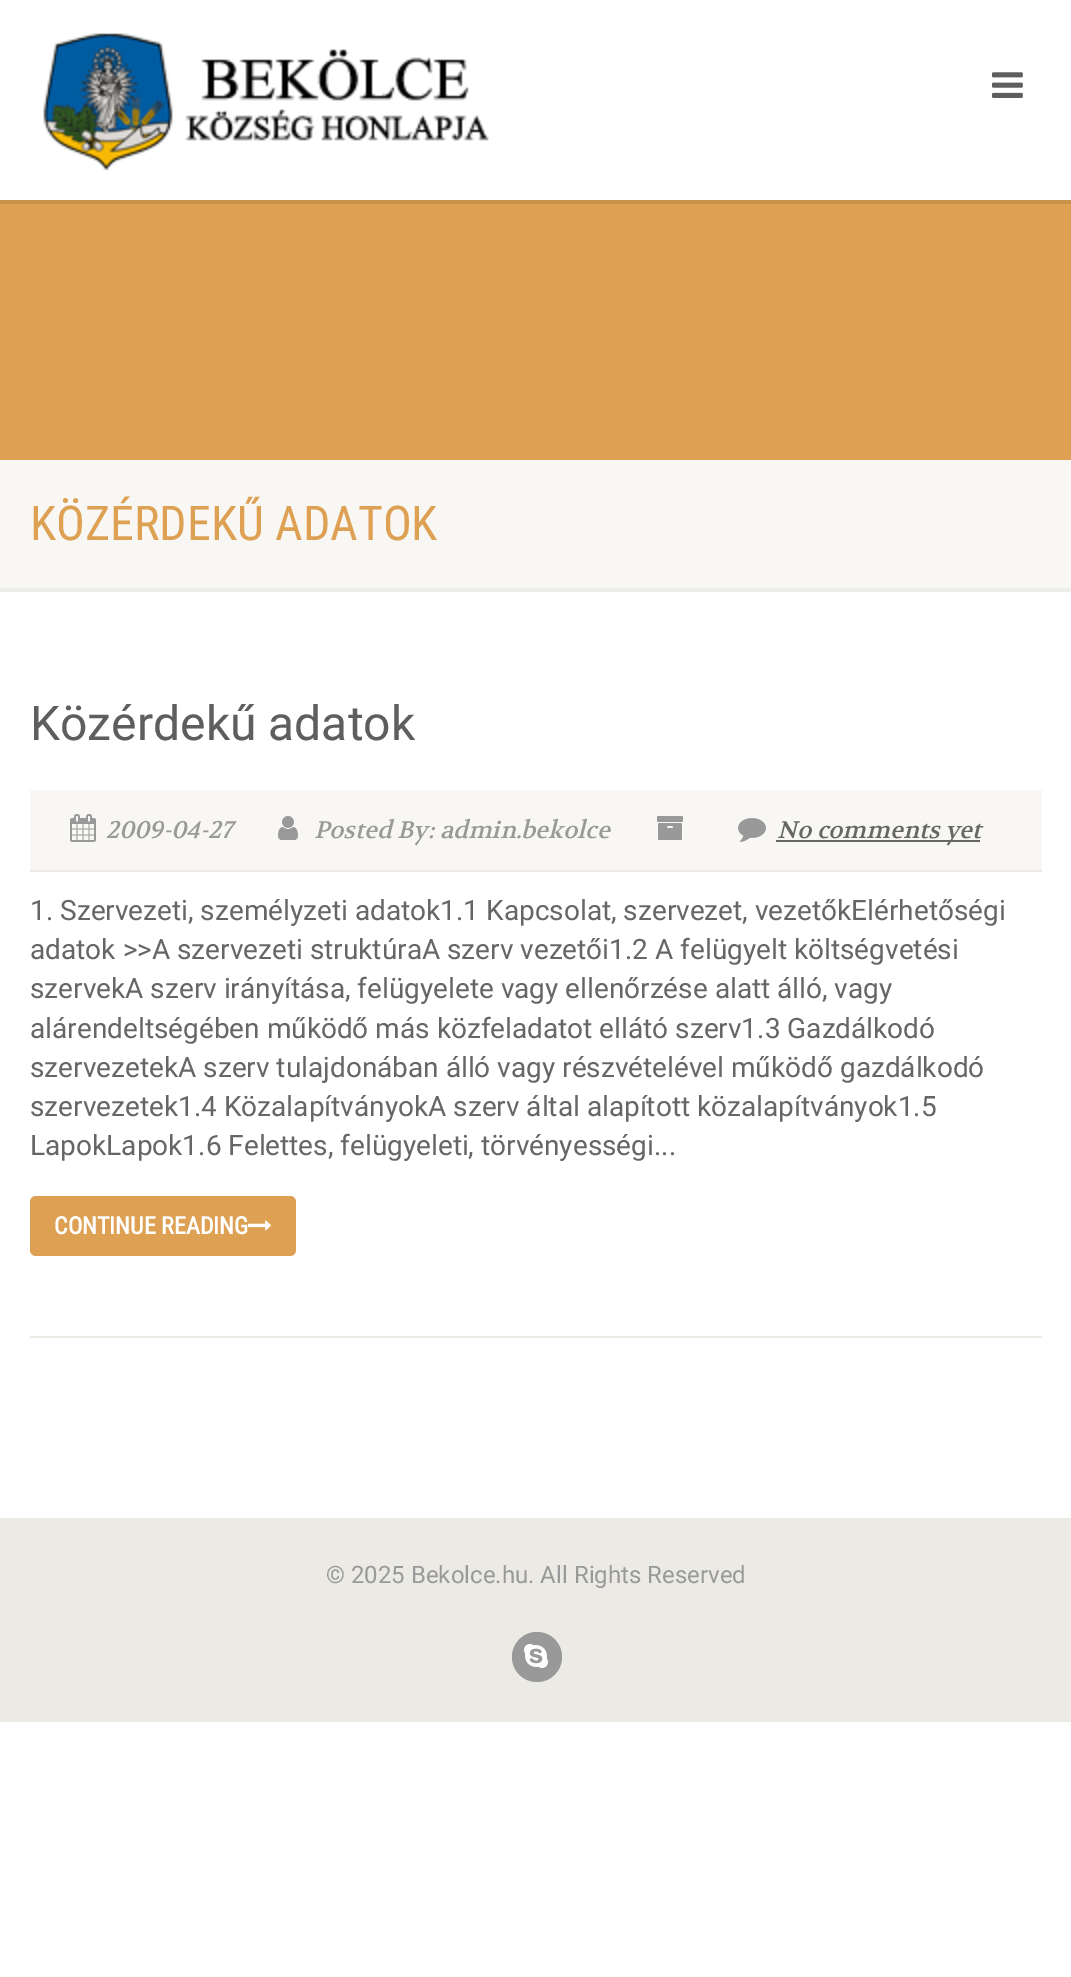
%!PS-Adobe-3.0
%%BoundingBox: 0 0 1071 1977
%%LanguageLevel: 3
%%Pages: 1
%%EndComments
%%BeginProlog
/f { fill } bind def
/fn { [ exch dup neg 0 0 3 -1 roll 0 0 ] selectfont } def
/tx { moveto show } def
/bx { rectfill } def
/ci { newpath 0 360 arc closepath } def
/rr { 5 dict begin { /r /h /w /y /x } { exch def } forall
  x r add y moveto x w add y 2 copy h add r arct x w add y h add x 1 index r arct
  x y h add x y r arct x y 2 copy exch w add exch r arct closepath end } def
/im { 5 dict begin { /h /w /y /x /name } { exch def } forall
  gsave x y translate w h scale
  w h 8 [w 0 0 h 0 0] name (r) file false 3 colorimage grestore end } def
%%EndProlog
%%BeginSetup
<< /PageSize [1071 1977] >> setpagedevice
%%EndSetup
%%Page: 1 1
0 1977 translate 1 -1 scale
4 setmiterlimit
1 setgray
0 0 1071 1977 bx
0.784 0.569 0.298 setrgbcolor
0 200 1071 4 bx
(image0.raw) 43 33 446 137 im
(image1.raw) 992 72 31 26 im
0.871 0.631 0.329 setrgbcolor
0 204 1071 256 bx
0.929 setgray
0 588 1071 4 bx
0.973 0.969 0.953 setrgbcolor
0 460 1071 128 bx
/RobotoCondensed-Regular 48 fn
0.871 0.631 0.329 setrgbcolor
(KÖZÉRDEKŰ ADATOK) 30 540 tx
0.925 0.918 0.894 setrgbcolor
30 1336 1012 2 bx
/Roboto-Regular 48 fn
0.369 setgray
(Közérdekű adatok) 30 740 tx
0.973 0.969 0.953 setrgbcolor
30 790 1012 80 bx
0.925 0.918 0.894 setrgbcolor
30 870 1012 2 bx
(image2.raw) 70 814 26 28 im
/Volkhov-Italic 24 fn
0.6 setgray
(2009-04-27) 106 838 tx
(image3.raw) 278 816 20 24 im
(Posted By: admin.bekolce) 314 838 tx
(image4.raw) 657 816 26 24 im
(image5.raw) 738 818 28 24 im
0.4 setgray
776 840 204 2 bx
(No comments yet) 777 838 tx
/Roboto-Regular 28 fn
(1. Szervezeti, személyzeti adatok1.1 Kapcsolat, szervezet, vezetőkElérhetőségi) 30 920 tx
(adatok >>A szervezeti struktúraA szerv vezetői1.2 A felügyelt költségvetési) 30 959 tx
(szervekA szerv irányítása, felügyelete vagy ellenőrzése alatt álló, vagy) 30 998 tx
(alárendeltségében működő más közfeladatot ellátó szerv1.3 Gazdálkodó) 30 1038 tx
(szervezetekA szerv tulajdonában álló vagy részvételével működő gazdálkodó) 30 1077 tx
(szervezetek1.4 KözalapítványokA szerv által alapított közalapítványok1.5) 30 1116 tx
(LapokLapok1.6 Felettes, felügyeleti, törvényességi...) 30 1155 tx
0.871 0.631 0.329 setrgbcolor
30 1196 266 60 6 rr f
/RobotoCondensed-Bold 24 fn
1 setgray
(CONTINUE READING) 54 1234 tx
(image6.raw) 248 1220 24 11 im
0.925 0.918 0.894 setrgbcolor
0 1518 1071 204 bx
/Roboto-Regular 24 fn
0.6 setgray
(© 2025 Bekolce.hu. All Rights Reserved) 326 1583 tx
537 1657 25 ci f
(image7.raw) 524 1644 24 24 im
showpage
%%EOF
